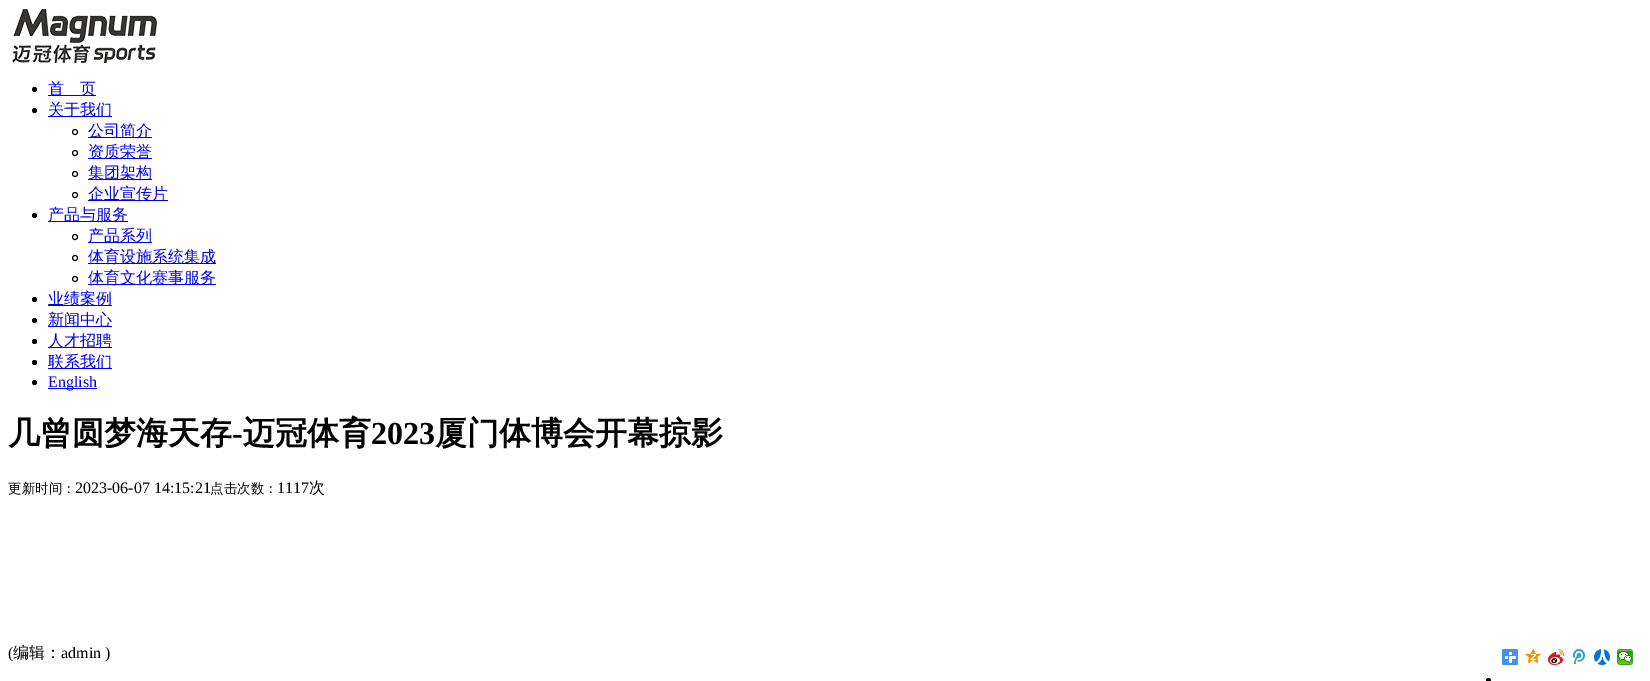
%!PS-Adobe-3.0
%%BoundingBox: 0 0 1650 681
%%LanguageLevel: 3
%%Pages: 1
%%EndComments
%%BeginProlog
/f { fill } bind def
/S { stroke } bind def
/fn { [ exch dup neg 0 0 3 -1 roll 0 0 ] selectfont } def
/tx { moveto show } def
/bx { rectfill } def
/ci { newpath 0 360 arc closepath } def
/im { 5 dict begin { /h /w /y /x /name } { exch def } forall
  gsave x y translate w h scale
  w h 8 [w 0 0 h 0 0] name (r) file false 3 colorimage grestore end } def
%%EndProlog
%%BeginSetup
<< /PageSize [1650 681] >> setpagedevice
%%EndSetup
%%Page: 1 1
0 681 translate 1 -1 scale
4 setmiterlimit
1 setgray
0 0 1650 681 bx
(image0.raw) 12 9 145 54 im
0 setgray
34.5 89.5 2.5 ci f
0 0 0.933 setrgbcolor
48 95 48 1 bx
/WenQuanYiZenHei-Medium 16 fn
(首　页) 48 94 tx
0 setgray
34.5 110.5 2.5 ci f
0 0 0.933 setrgbcolor
48 116 64 1 bx
(关于我们) 48 115 tx
0 setgray
75 132 2.5 ci S
0 0 0.933 setrgbcolor
88 137 64 1 bx
(公司简介) 88 136 tx
0 setgray
75 153 2.5 ci S
0 0 0.933 setrgbcolor
88 158 64 1 bx
(资质荣誉) 88 157 tx
0 setgray
75 174 2.5 ci S
0 0 0.933 setrgbcolor
88 179 64 1 bx
(集团架构) 88 178 tx
0 setgray
75 195 2.5 ci S
0 0 0.933 setrgbcolor
88 200 80 1 bx
(企业宣传片) 88 199 tx
0 setgray
34.5 215.5 2.5 ci f
0 0 0.933 setrgbcolor
48 221 80 1 bx
(产品与服务) 48 220 tx
0 setgray
75 237 2.5 ci S
0 0 0.933 setrgbcolor
88 242 64 1 bx
(产品系列) 88 241 tx
0 setgray
75 258 2.5 ci S
0 0 0.933 setrgbcolor
88 263 128 1 bx
(体育设施系统集成) 88 262 tx
0 setgray
75 279 2.5 ci S
0 0 0.933 setrgbcolor
88 284 128 1 bx
(体育文化赛事服务) 88 283 tx
0 setgray
34.5 299.5 2.5 ci f
0 0 0.933 setrgbcolor
48 305 64 1 bx
(业绩案例) 48 304 tx
0 setgray
34.5 320.5 2.5 ci f
0 0 0.933 setrgbcolor
48 326 64 1 bx
(新闻中心) 48 325 tx
0 setgray
34.5 341.5 2.5 ci f
0 0 0.933 setrgbcolor
48 347 64 1 bx
(人才招聘) 48 346 tx
0 setgray
34.5 362.5 2.5 ci f
0 0 0.933 setrgbcolor
48 368 64 1 bx
(联系我们) 48 367 tx
0 setgray
34.5 382.5 2.5 ci f
0 0 0.933 setrgbcolor
48 388 49 1 bx
/LiberationSerif-Regular 16 fn
(English) 48 387 tx
/WenQuanYiZenHei-Bold 32 fn
0 setgray
(几曾圆梦海天存) 8 444 tx
/LiberationSerif-Bold 32 fn
(-) 232 444 tx
/WenQuanYiZenHei-Bold 32 fn
(迈冠体育) 243 444 tx
/LiberationSerif-Bold 32 fn
(2023) 371 444 tx
/WenQuanYiZenHei-Bold 32 fn
(厦门体博会开幕掠影) 435 444 tx
/WenQuanYiZenHei-Medium 13.5 fn
(更新时间：) 8 493 tx
/LiberationSerif-Regular 16 fn
(2023-06-07 14:15:21) 75 493 tx
/WenQuanYiZenHei-Medium 13.5 fn
(点击次数：) 210 493 tx
/LiberationSerif-Regular 16 fn
(1117) 277 493 tx
/WenQuanYiZenHei-Medium 16 fn
(次) 309 493 tx
/LiberationSerif-Regular 16 fn
(\() 8 658 tx
/WenQuanYiZenHei-Medium 16 fn
(编辑：) 13 658 tx
/LiberationSerif-Regular 16 fn
(admin \)) 61 658 tx
(image1.raw) 1502 649 16 16 im
(image2.raw) 1525 649 16 14 im
(image3.raw) 1548 649 16 16 im
(image4.raw) 1573 649 12 15 im
(image5.raw) 1594 649 16 16 im
(image6.raw) 1617 649 16 16 im
1488.5 680.5 2.5 ci f
showpage
%%EOF
